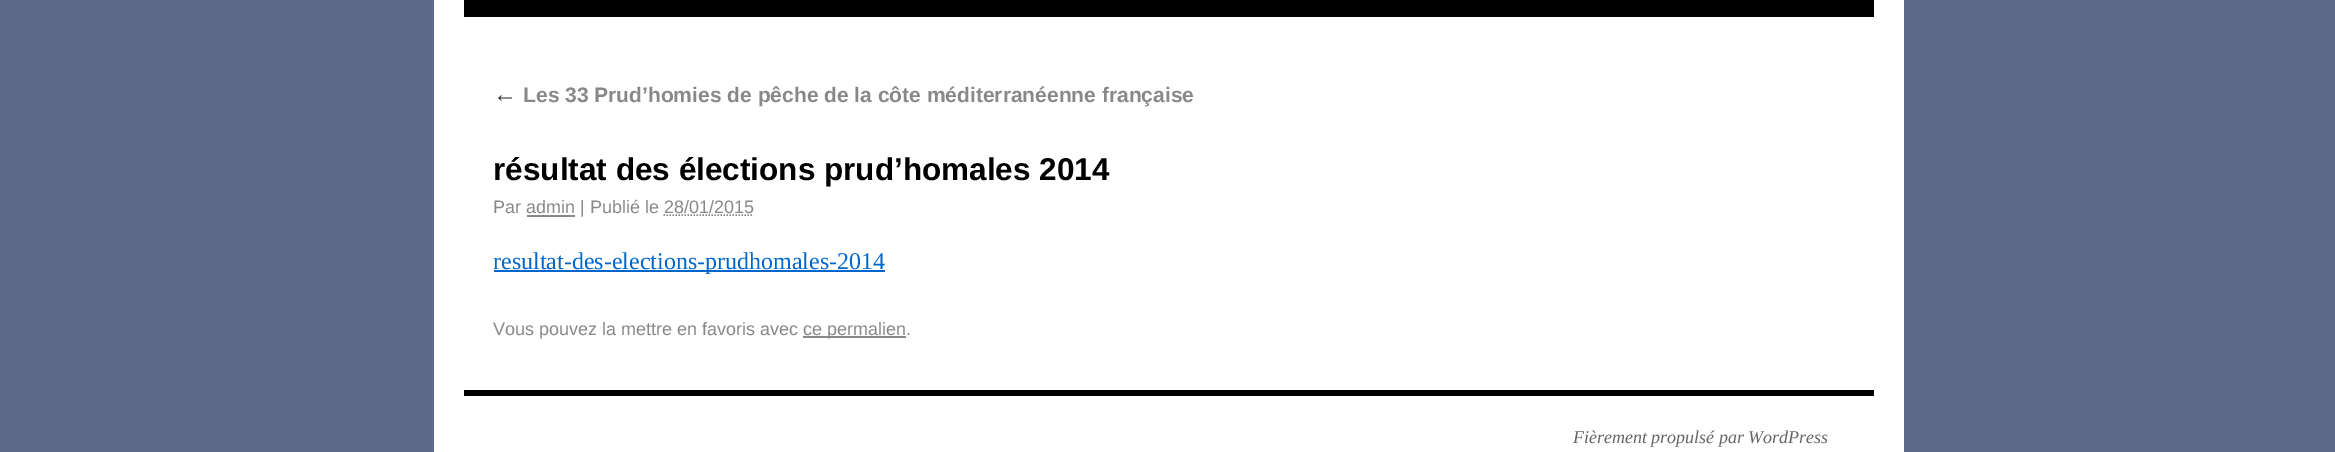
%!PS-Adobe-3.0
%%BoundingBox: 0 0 2335 452
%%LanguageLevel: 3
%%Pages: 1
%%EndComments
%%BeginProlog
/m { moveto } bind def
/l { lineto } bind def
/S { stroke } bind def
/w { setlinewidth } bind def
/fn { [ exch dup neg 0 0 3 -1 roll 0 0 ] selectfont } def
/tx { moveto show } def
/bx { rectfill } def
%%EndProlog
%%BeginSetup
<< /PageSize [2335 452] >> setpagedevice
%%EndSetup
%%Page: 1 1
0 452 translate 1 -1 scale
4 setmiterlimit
0.365 0.416 0.537 setrgbcolor
0 0 2335 452 bx
1 setgray
434 0 1470 452 bx
0 setgray
464 0 1410 17 bx
/LiberationSerif-Italic 24 fn
0.2 setgray
(←) 493 102 tx
/LiberationSans-Bold 21 fn
0.533 setgray
(Les 33 Prud’homies de pêche de la côte méditerranéenne française) 523 102 tx
/LiberationSans-Bold 31.5 fn
0 setgray
(résultat des élections prud’homales 2014) 493 180 tx
/LiberationSans-Regular 18 fn
0.533 setgray
(Par admin | Publié le 28/01/2015) 493 213 tx
527 215 48 2 bx
1.5 w
[1.5 1.5] 0 setdash
663.5 215 m 753.5 215 l S
0 0.4 0.8 setrgbcolor
494 270 391 2 bx
/LiberationSerif-Regular 24 fn
(resultat-des-elections-prudhomales-2014) 493 269 tx
/LiberationSans-Regular 18 fn
0.533 setgray
(Vous pouvez la mettre en favoris avec) 493 335 tx
803 336 103 2 bx
(ce permalien.) 803 335 tx
0 setgray
464 390 1410 6 bx
/LiberationSerif-Italic 18 fn
0.4 setgray
(Fièrement propulsé par WordPress) 1573 443 tx
showpage
%%EOF
